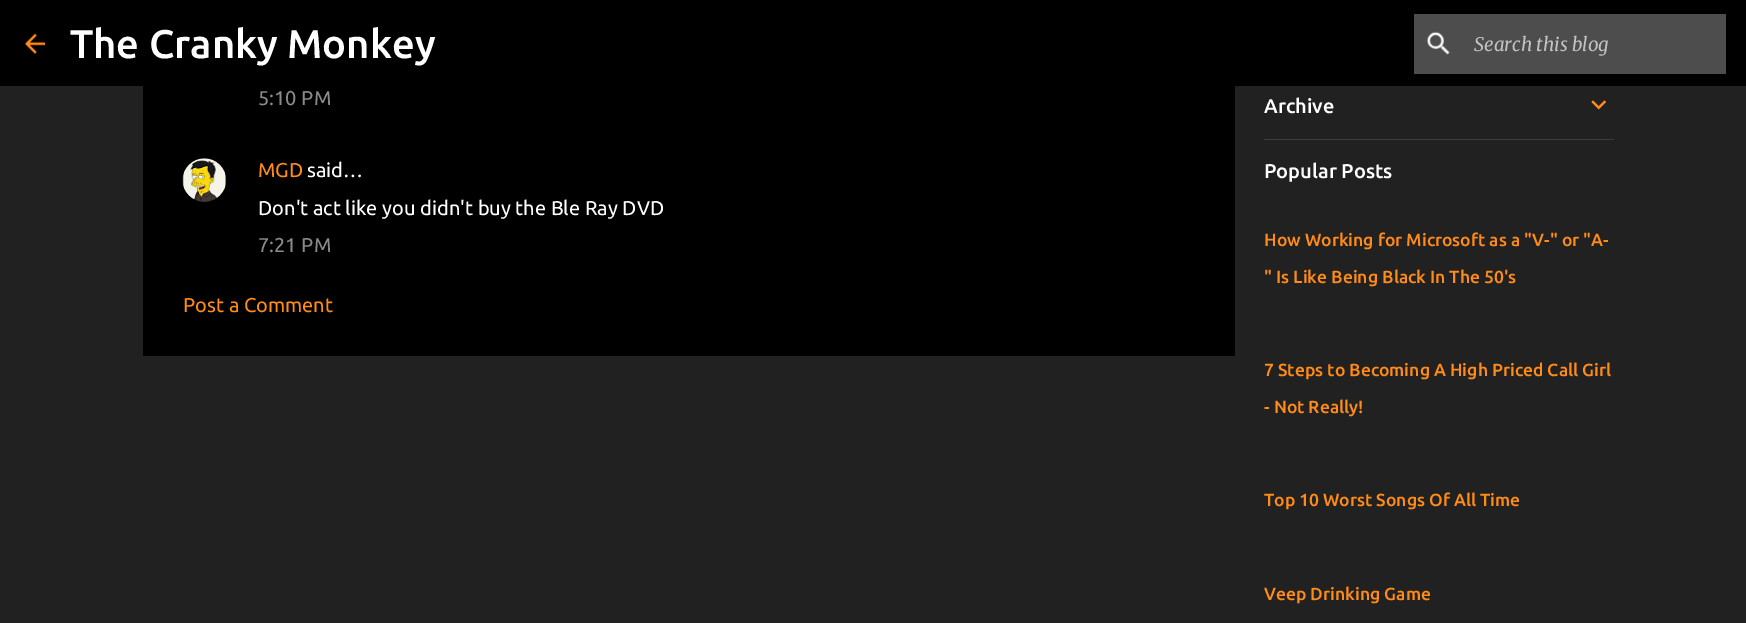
%!PS-Adobe-3.0
%%BoundingBox: 0 0 1746 623
%%LanguageLevel: 3
%%Pages: 1
%%EndComments
%%BeginProlog
/fn { [ exch dup neg 0 0 3 -1 roll 0 0 ] selectfont } def
/tx { moveto show } def
/bx { rectfill } def
/im { 5 dict begin { /h /w /y /x /name } { exch def } forall
  gsave x y translate w h scale
  w h 8 [w 0 0 h 0 0] name (r) file false 3 colorimage grestore end } def
%%EndProlog
%%BeginSetup
<< /PageSize [1746 623] >> setpagedevice
%%EndSetup
%%Page: 1 1
0 623 translate 1 -1 scale
4 setmiterlimit
0.129 setgray
0 0 1746 623 bx
0 setgray
0 0 1746 86 bx
(image0.raw) 25 33 20 21 im
/Ubuntu-Medium 40 fn
1 setgray
(The Cranky Monkey) 70 58 tx
0.302 setgray
1414 14 312 60 bx
(image1.raw) 1426 31 24 24 im
/Merriweather-Italic 18.75 fn
0.761 setgray
(Search this blog) 1474 51 tx
0 setgray
143 86 1092 270 bx
/Ubuntu-Regular 20 fn
0.541 setgray
(5:10 PM) 258 105 tx
(image2.raw) 182 158 45 44 im
1 0.545 0.094 setrgbcolor
(MGD) 258 177 tx
1 setgray
(said…) 307 177 tx
(Don't act like you didn't buy the Ble Ray DVD) 258 215 tx
0.541 setgray
(7:21 PM) 258 252 tx
1 0.545 0.094 setrgbcolor
(Post a Comment) 183 312 tx
/Ubuntu-Medium 20 fn
1 setgray
(Archive) 1264 113 tx
(image3.raw) 1591 100 15 10 im
0.235 setgray
1264 139 350 1 bx
1 setgray
(Popular Posts) 1264 178 tx
/Ubuntu-Medium 17.5 fn
1 0.545 0.094 setrgbcolor
(How Working for Microsoft as a "V-" or "A-) 1264 246 tx
(" Is Like Being Black In The 50's) 1264 283 tx
(7 Steps to Becoming A High Priced Call Girl) 1264 376 tx
(- Not Really!) 1264 413 tx
(Top 10 Worst Songs Of All Time) 1264 506 tx
(Veep Drinking Game) 1264 600 tx
showpage
%%EOF
